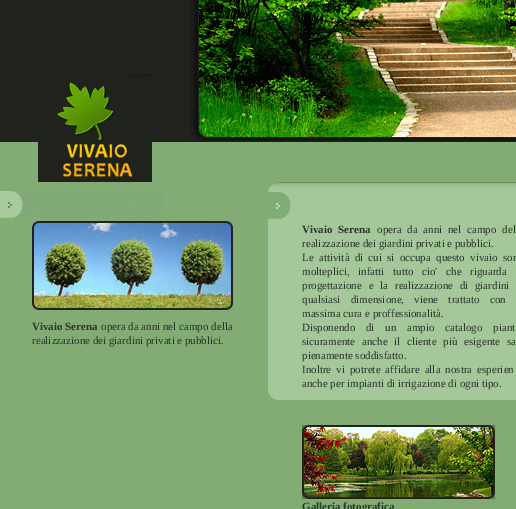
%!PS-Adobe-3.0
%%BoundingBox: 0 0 516 509
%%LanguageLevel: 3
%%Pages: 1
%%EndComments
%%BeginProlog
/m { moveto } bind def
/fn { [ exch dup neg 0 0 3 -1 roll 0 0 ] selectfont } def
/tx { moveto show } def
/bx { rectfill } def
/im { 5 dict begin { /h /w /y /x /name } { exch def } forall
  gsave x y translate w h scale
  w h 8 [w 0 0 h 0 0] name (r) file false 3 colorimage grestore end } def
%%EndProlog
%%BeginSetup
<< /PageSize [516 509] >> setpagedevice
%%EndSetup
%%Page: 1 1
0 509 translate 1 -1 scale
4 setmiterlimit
0.51 0.675 0.455 setrgbcolor
0 0 516 509 bx
(image0.raw) 0 0 516 142 im
(image1.raw) 38 74 114 108 im
(image2.raw) 0 191 165 27 im
(image3.raw) 32 221 201 89 im
/LiberationSerif-Bold 11 fn
0.173 0.208 0.169 setrgbcolor
(Vivaio Serena) 32 330 tx
/LiberationSerif-Regular 11 fn
(opera da anni nel campo della) 101 330 tx
(realizzazione dei giardini privati e pubblici.) 32 344 tx
(image4.raw) 268 183 10 9 im
(image5.raw) 278 182 238 10 im
0.647 0.784 0.608 setrgbcolor
268 192 248 198 bx
(image6.raw) 268 192 23 27 im
/LiberationSerif-Bold 11 fn
0.173 0.208 0.169 setrgbcolor
302 233 m 3 0 32 (Vivaio Serena) widthshow
/LiberationSerif-Regular 11 fn
377 233 m 3 0 32 (opera da anni nel campo del) widthshow
(realizzazione dei giardini privati e pubblici.) 302 247 tx
302 261 m 2.5 0 32 (Le attività di cui si occupa questo vivaio son) widthshow
302 275 m 6 0 32 (molteplici, infatti tutto cio' che riguarda) widthshow
302 289 m 4 0 32 (progettazione e la realizzazione di giardini) widthshow
302 303 m 7.5 0 32 (qualsiasi dimensione, viene trattato con) widthshow
(massima cura e proffessionalità.) 302 317 tx
302 331 m 8 0 32 (Disponendo di un ampio catalogo piant) widthshow
302 345 m 4 0 32 (sicuramente anche il cliente più esigente sa) widthshow
(pienamente soddisfatto.) 302 359 tx
302 373 m 2.25 0 32 (Inoltre vi potrete affidare alla nostra esperien) widthshow
(anche per impianti di irrigazione di ogni tipo.) 302 387 tx
(image7.raw) 268 390 10 10 im
0.647 0.784 0.608 setrgbcolor
278 390 238 10 bx
(image8.raw) 302 425 193 74 im
/LiberationSerif-Bold 11 fn
0.173 0.208 0.169 setrgbcolor
(Galleria fotografica) 302 510 tx
showpage
%%EOF
